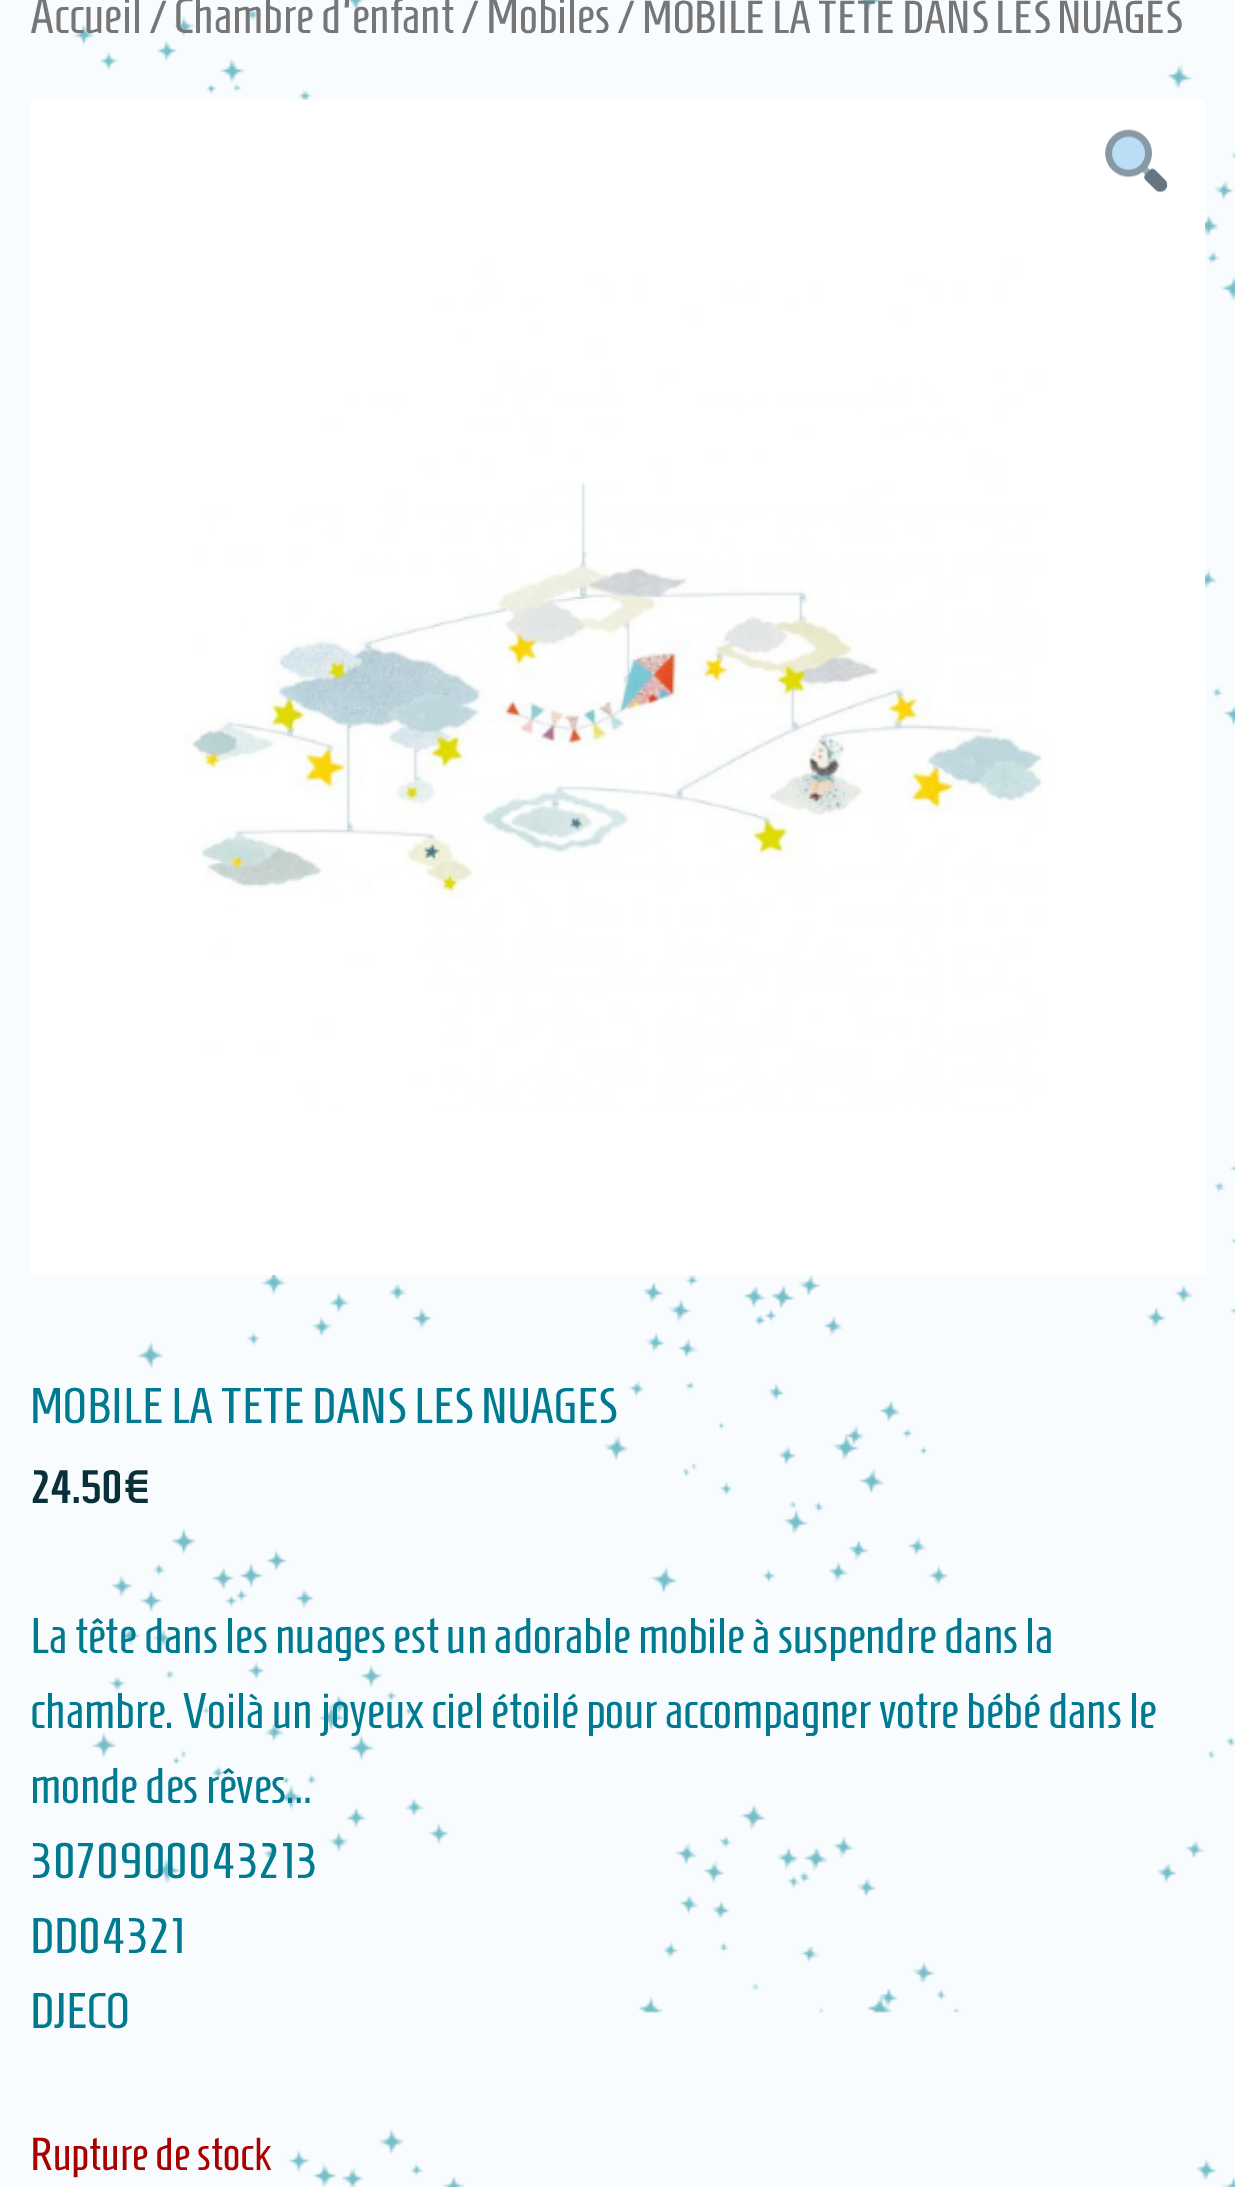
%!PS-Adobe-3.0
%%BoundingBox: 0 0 1235 2187
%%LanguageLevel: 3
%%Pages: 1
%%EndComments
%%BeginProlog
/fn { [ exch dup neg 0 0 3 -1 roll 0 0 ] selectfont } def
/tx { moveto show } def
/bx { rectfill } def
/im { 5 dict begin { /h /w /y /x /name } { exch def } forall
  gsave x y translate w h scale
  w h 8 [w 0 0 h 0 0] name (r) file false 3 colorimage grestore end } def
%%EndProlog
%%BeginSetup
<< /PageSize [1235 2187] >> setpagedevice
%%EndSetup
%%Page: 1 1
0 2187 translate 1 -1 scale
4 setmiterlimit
1 setgray
0 0 1235 2187 bx
(image0.raw) 0 0 1235 2187 im
/Homenaje-Regular 50 fn
0.463 setgray
(Accueil) 30 33 tx
/Homenaje-Regular 46 fn
(/) 149 33 tx
/Homenaje-Regular 50 fn
(Chambre d'enfant) 174 33 tx
/Homenaje-Regular 46 fn
(/) 461 33 tx
/Homenaje-Regular 50 fn
(Mobiles) 486 33 tx
/Homenaje-Regular 46 fn
(/ MOBILE LA TETE DANS LES NUAGES) 617 33 tx
(image1.raw) 30 100 1175 1175 im
(image2.raw) 1105 129 63 64 im
/Homenaje-Regular 50 fn
0 0.478 0.565 setrgbcolor
(MOBILE LA TETE DANS LES NUAGES) 30 1423 tx
/Homenaje-Bold 45 fn
0.039 0.188 0.227 setrgbcolor
(24.50€) 30 1503 tx
/Homenaje-Regular 50 fn
0 0.478 0.565 setrgbcolor
(La tête dans les nuages est un adorable mobile à suspendre dans la) 30 1653 tx
(chambre. Voilà un joyeux ciel étoilé pour accompagner votre bébé dans le) 30 1728 tx
(monde des rêves…) 30 1803 tx
(3070900043213) 30 1878 tx
(DD04321) 30 1953 tx
(DJECO) 30 2028 tx
/Homenaje-Regular 46 fn
0.667 0 0 setrgbcolor
(Rupture de stock) 30 2170 tx
showpage
%%EOF
